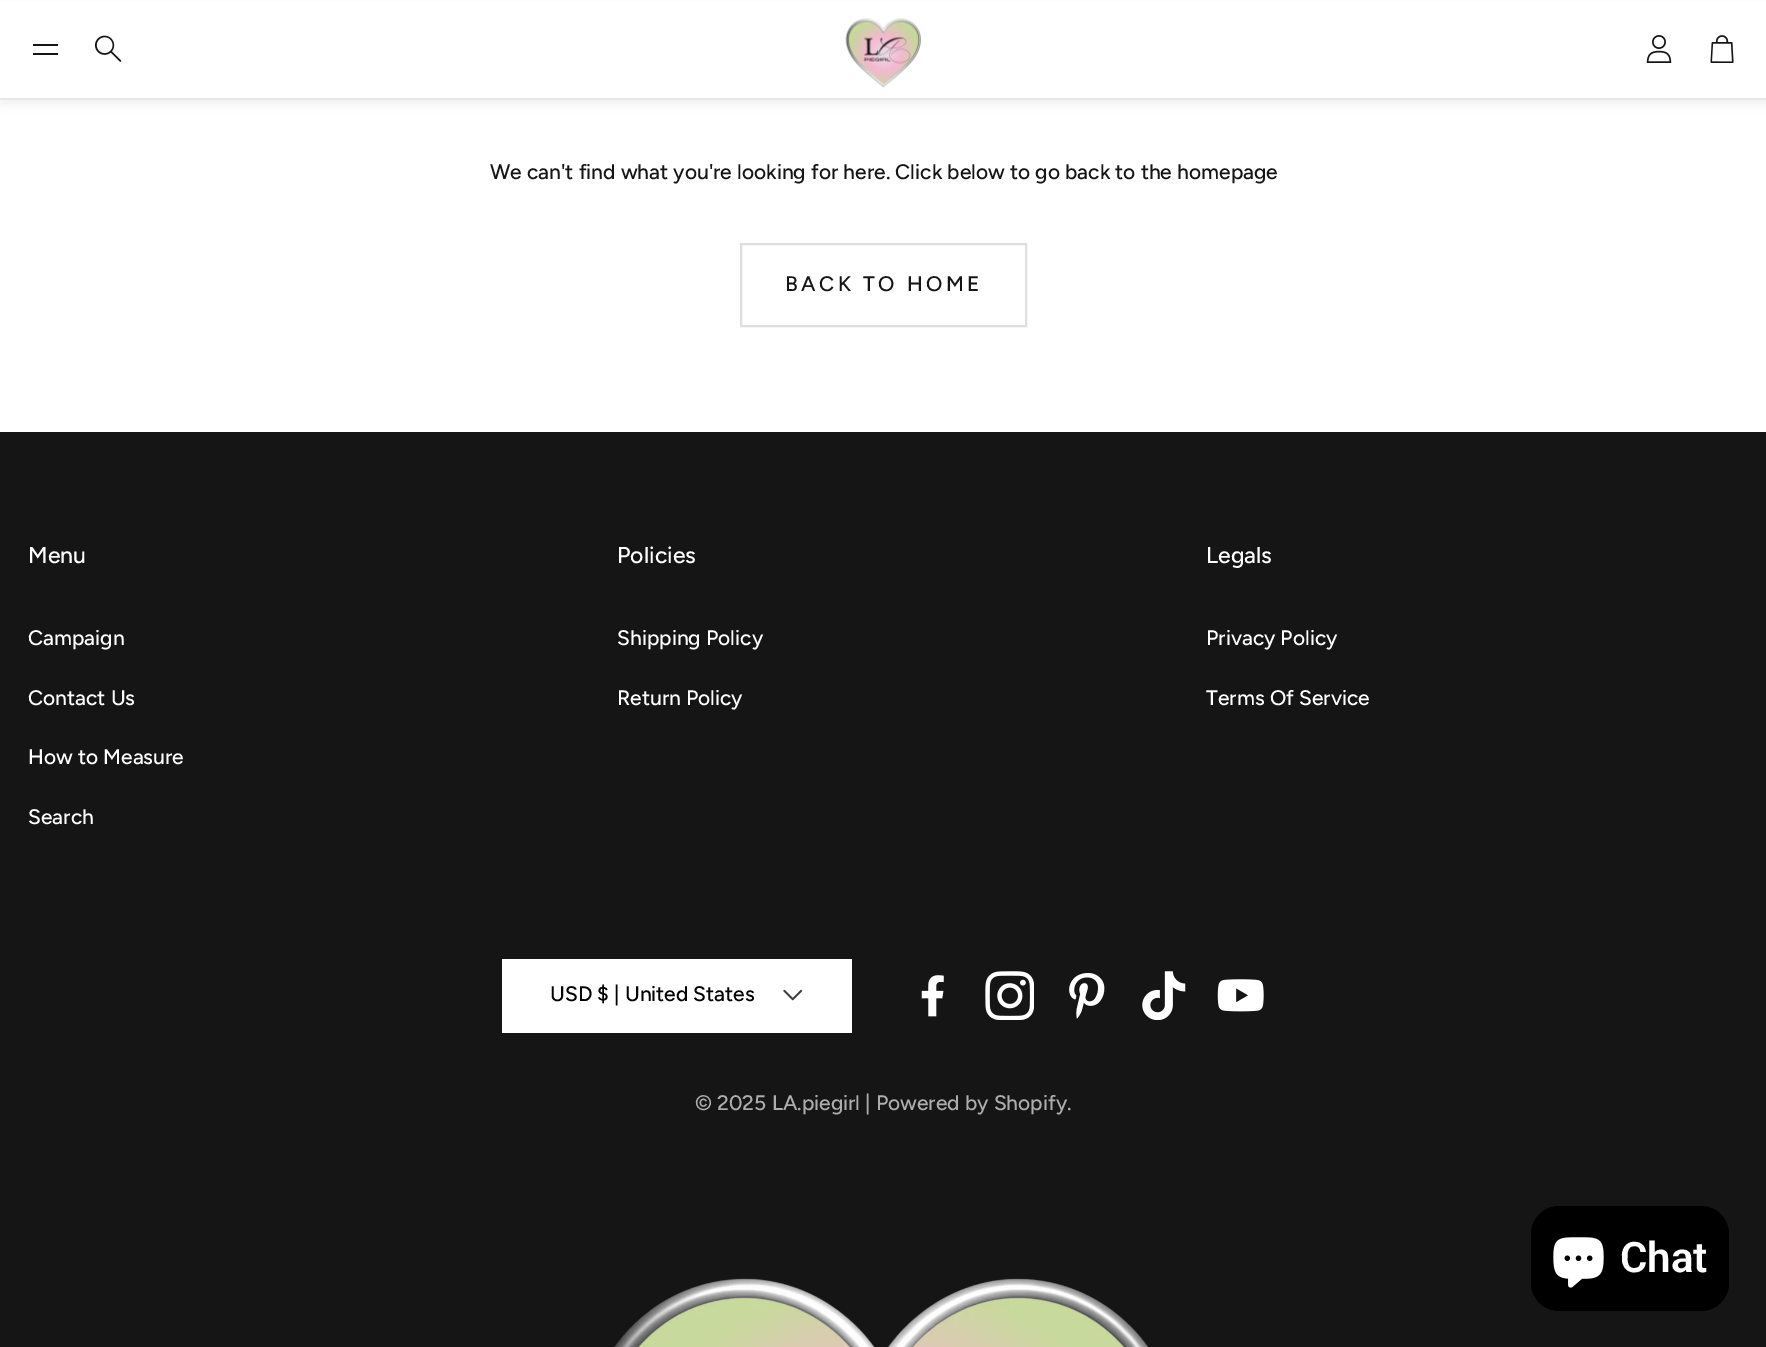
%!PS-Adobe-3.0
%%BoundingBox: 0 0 1766 1347
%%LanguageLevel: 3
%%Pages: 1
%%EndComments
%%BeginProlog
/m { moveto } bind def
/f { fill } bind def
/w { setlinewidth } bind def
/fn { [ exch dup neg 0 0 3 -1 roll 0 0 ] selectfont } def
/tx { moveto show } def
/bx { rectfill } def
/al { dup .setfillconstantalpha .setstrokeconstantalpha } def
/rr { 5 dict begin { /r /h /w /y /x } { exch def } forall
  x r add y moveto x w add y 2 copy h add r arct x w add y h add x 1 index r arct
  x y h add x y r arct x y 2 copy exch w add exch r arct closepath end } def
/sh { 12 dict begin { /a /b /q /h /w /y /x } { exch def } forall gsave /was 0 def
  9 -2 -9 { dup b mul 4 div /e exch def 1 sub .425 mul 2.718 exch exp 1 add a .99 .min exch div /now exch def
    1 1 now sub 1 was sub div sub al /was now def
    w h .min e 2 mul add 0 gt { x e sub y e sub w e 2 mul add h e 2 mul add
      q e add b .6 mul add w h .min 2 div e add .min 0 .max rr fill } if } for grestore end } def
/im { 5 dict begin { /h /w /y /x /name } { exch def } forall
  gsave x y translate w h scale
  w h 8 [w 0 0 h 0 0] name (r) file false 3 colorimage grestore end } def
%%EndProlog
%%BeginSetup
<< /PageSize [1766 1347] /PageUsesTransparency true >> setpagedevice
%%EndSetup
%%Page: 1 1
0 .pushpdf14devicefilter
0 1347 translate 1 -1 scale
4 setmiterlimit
1 setgray
0 0 1766 1347 bx
0 setgray
0 5 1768 100 0 5 0.05 sh
1 setgray
0 1 1766 97 bx
0.906 setgray
0 98 1766 2 bx
0.082 setgray
33 44 25 2 bx
33 53 25 2 bx
(image0.raw) 94 35 28 27 im
(image1.raw) 845 18 77 70 im
(image2.raw) 1646 35 26 28 im
(image3.raw) 1710 35 24 28 im
/Figtree-Medium 21 fn
(We can't find what you're looking for here. Click below to go back to the homepage) 490 179 tx
0.875 setgray
2 w
741 244 285 82 rectstroke
0.082 setgray
785 291 m 3.5 0 (BACK TO HOME) ashow
0 432 1766 915 bx
/Figtree-Medium 23 fn
1 setgray
(Menu) 28 563 tx
/Figtree-Medium 21 fn
(Campaign) 28 645 tx
(Contact Us) 28 705 tx
(How to Measure) 28 764 tx
(Search) 28 824 tx
/Figtree-Medium 23 fn
(Policies) 617 563 tx
/Figtree-Medium 21 fn
(Shipping Policy) 617 645 tx
(Return Policy) 617 705 tx
/Figtree-Medium 23 fn
(Legals) 1206 563 tx
/Figtree-Medium 21 fn
(Privacy Policy) 1206 645 tx
(Terms Of Service) 1206 705 tx
502 959 350 74 bx
0 setgray
(USD $ | United States) 550 1001 tx
(image4.raw) 783 989 20 12 im
(image5.raw) 921 975 23 42 im
(image6.raw) 985 971 49 49 im
(image7.raw) 1069 973 36 46 im
(image8.raw) 1142 971 44 49 im
(image9.raw) 1217 979 47 33 im
0.678 setgray
(© 2025 LA.piegirl | Powered by Shopify.) 695 1110 tx
(image10.raw) 614 1278 535 69 im
0 setgray
1531 1206 198 105 28 rr f
(image11.raw) 1553 1237 51 51 im
/Roboto-SemiBold 42 fn
1 setgray
(Chat) 1620 1272 tx
.poppdf14devicefilter showpage
%%EOF
